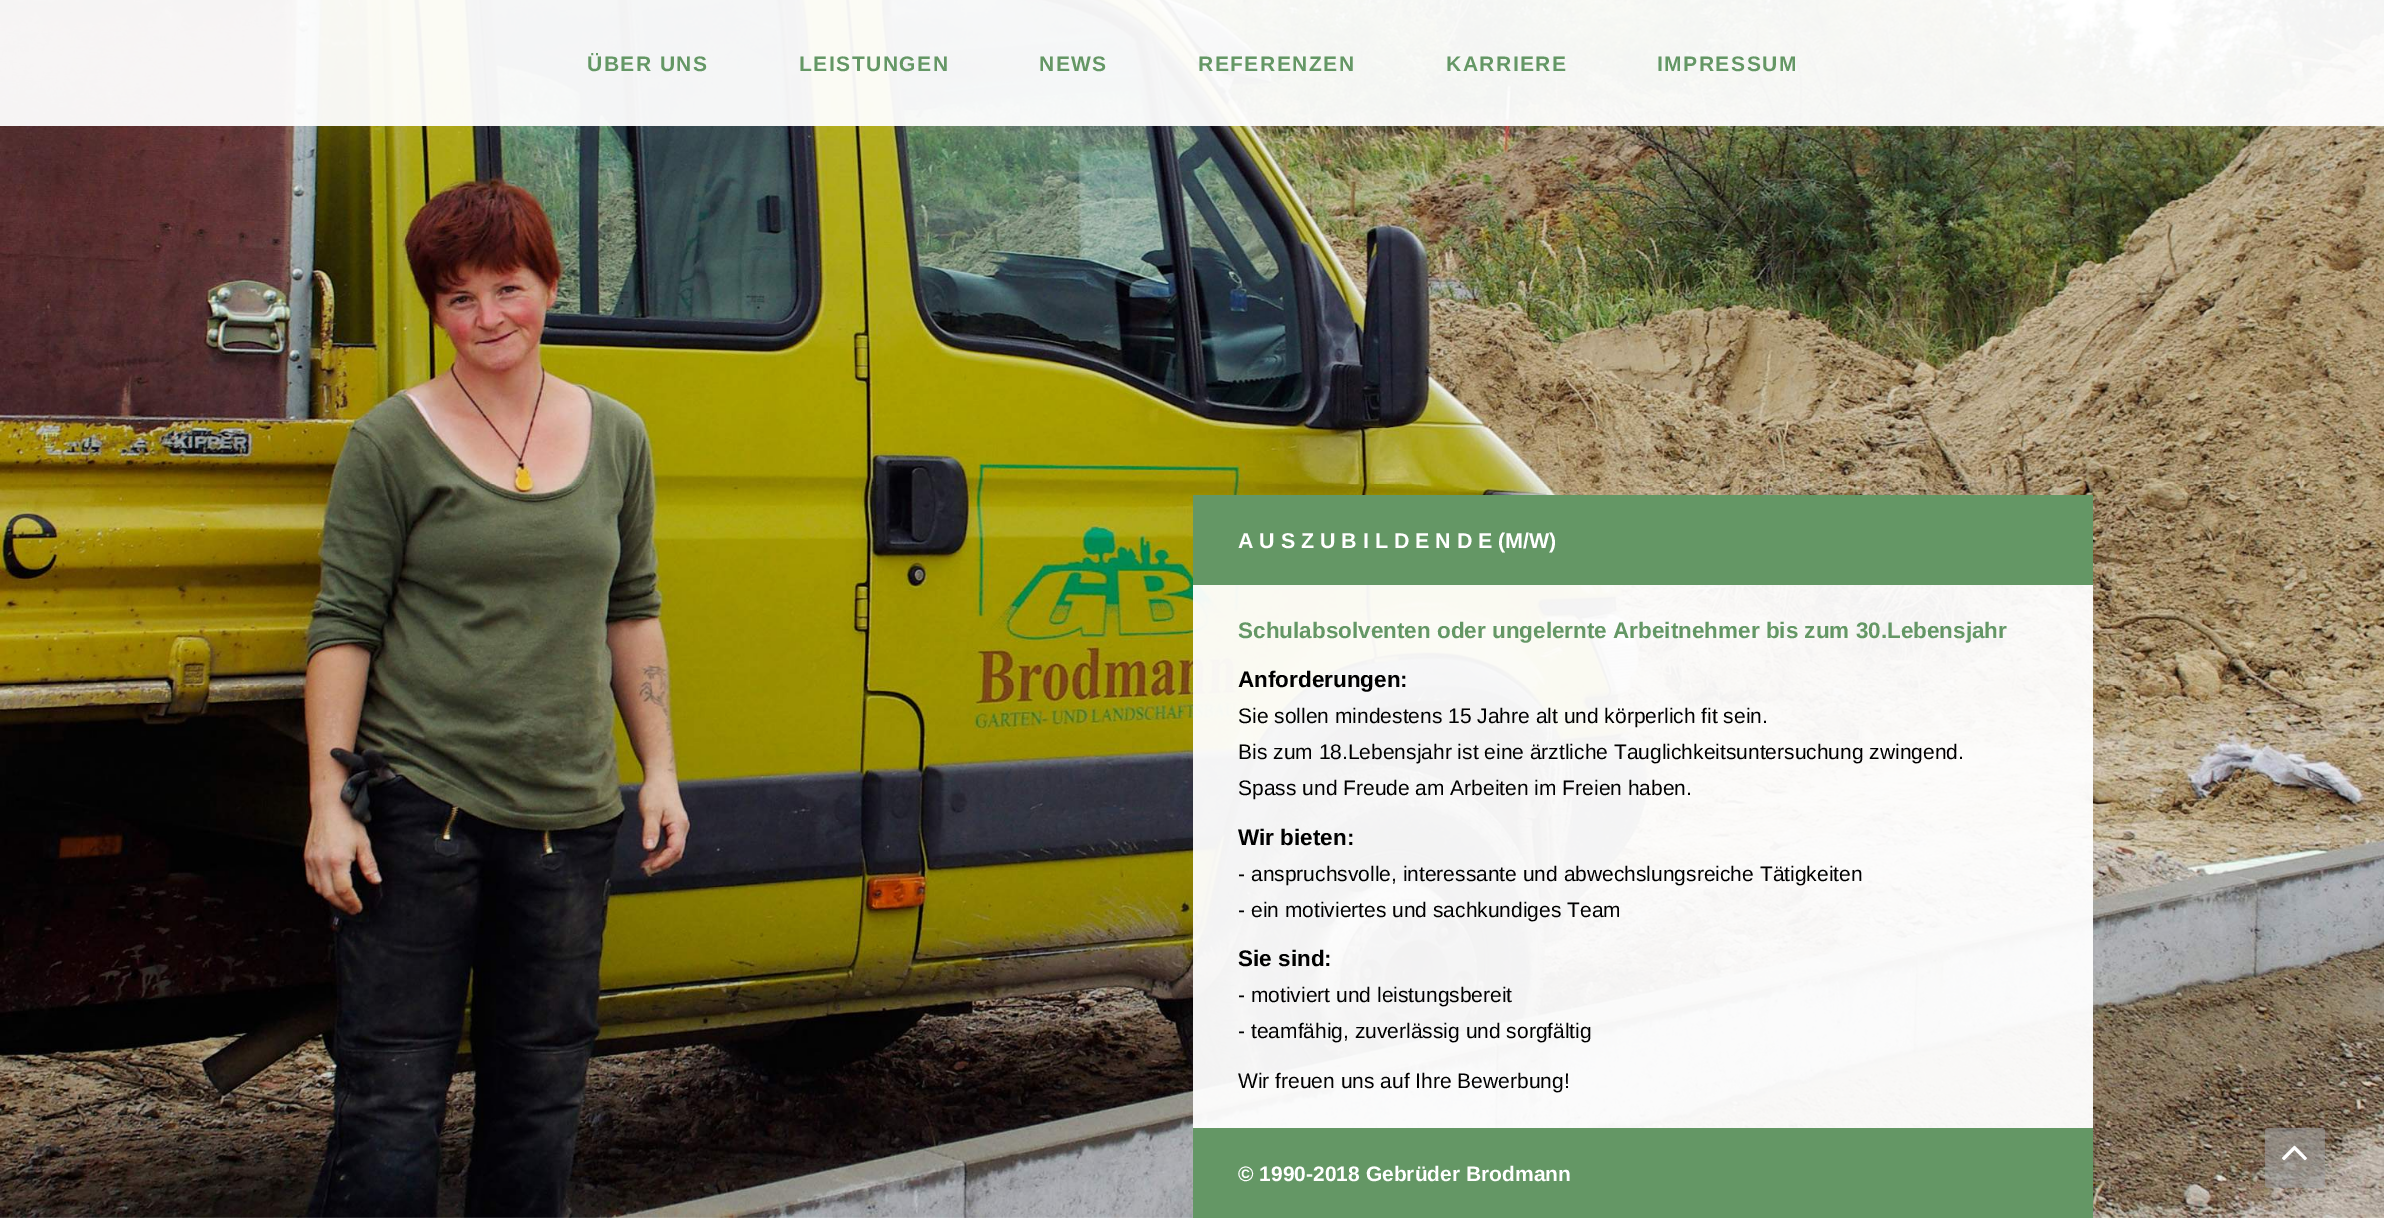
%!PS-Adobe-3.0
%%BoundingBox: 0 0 2384 1218
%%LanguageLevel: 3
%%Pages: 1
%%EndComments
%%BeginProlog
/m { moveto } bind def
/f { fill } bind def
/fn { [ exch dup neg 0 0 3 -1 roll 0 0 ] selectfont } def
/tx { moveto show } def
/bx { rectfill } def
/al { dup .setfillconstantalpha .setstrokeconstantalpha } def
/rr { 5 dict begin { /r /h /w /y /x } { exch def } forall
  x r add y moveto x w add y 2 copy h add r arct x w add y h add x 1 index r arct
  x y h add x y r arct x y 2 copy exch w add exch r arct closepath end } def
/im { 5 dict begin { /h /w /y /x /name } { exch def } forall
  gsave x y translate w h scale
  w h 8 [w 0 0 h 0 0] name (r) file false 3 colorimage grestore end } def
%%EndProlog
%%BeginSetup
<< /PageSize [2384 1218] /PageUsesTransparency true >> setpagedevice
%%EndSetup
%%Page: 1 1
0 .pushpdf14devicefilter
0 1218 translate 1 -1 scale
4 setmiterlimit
1 setgray
0 0 2384 1218 bx
(image0.raw) 0 0 2384 1218 im
0.95 al
0 0 2384 126 bx
/LiberationSans-Bold 21 fn
1 al
0.392 0.592 0.396 setrgbcolor
587 71 m 1.5 0 (ÜBER UNS) ashow
799 71 m 1.5 0 (LEISTUNGEN) ashow
1039 71 m 1.5 0 (NEWS) ashow
1198 71 m 1.5 0 (REFERENZEN) ashow
1446 71 m 1.5 0 (KARRIERE) ashow
1657 71 m 1.5 0 (IMPRESSUM) ashow
0.95 al
1 setgray
1193 585 900 543 bx
1 al
0.392 0.592 0.396 setrgbcolor
1193 495 900 90 bx
/LiberationSans-Bold 21.4 fn
1 setgray
(A U S Z U B I L D E N D E \(M/W\)) 1238 548 tx
/LiberationSans-Bold 22.5 fn
0.392 0.592 0.396 setrgbcolor
(Schulabsolventen oder ungelernte Arbeitnehmer bis zum 30.Lebensjahr) 1238 638 tx
0 setgray
(Anforderungen:) 1238 687 tx
/LiberationSans-Regular 21 fn
(Sie sollen mindestens 15 Jahre alt und körperlich fit sein.) 1238 723 tx
(Bis zum 18.Lebensjahr ist eine ärztliche Tauglichkeitsuntersuchung zwingend.) 1238 759 tx
(Spass und Freude am Arbeiten im Freien haben.) 1238 795 tx
/LiberationSans-Bold 22.5 fn
(Wir bieten:) 1238 845 tx
/LiberationSans-Regular 21 fn
(- anspruchsvolle, interessante und abwechslungsreiche Tätigkeiten) 1238 881 tx
(- ein motiviertes und sachkundiges Team) 1238 917 tx
/LiberationSans-Bold 22.5 fn
(Sie sind:) 1238 966 tx
/LiberationSans-Regular 21 fn
(- motiviert und leistungsbereit) 1238 1002 tx
(- teamfähig, zuverlässig und sorgfältig) 1238 1038 tx
(Wir freuen uns auf Ihre Bewerbung!) 1238 1088 tx
0.392 0.592 0.396 setrgbcolor
1193 1128 900 90 bx
/LiberationSans-Bold 21 fn
1 setgray
(© 1990-2018 Gebrüder Brodmann) 1238 1181 tx
0.6 al
0.612 setgray
2265 1128 60 60 3 rr f
1 al
(image1.raw) 2282 1145 25 16 im
.poppdf14devicefilter showpage
%%EOF
